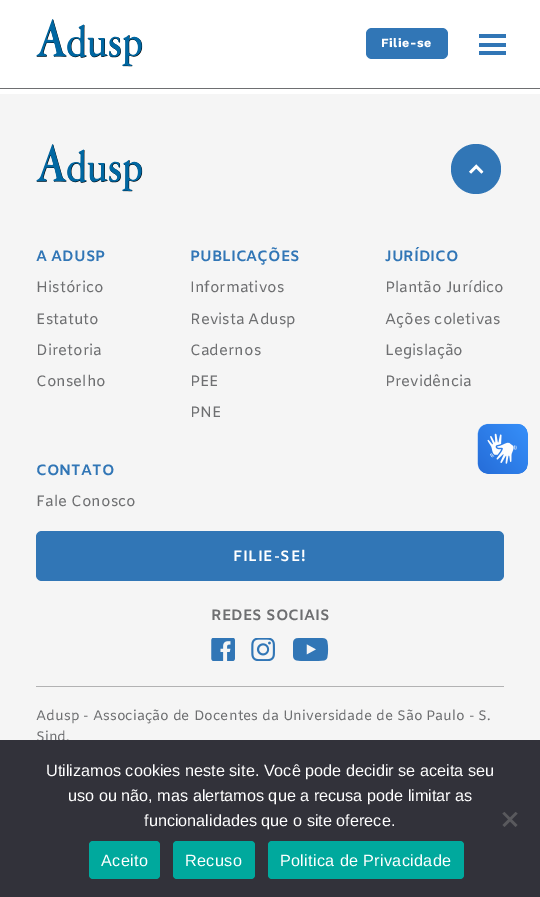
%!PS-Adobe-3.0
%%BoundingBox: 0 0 540 897
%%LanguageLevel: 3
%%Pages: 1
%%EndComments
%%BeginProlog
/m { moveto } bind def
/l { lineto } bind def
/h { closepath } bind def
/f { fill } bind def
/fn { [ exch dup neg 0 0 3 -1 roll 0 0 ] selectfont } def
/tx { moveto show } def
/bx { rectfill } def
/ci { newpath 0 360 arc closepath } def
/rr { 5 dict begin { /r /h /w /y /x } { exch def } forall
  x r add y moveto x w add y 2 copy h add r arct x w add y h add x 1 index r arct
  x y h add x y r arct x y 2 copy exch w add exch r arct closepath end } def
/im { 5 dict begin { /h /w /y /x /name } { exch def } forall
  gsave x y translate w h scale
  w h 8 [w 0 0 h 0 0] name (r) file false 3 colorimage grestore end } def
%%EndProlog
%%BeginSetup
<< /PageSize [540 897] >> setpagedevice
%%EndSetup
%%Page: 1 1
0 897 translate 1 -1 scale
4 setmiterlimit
1 setgray
0 0 540 897 bx
0.431 0.435 0.443 setrgbcolor
0 88 540 1 bx
(image0.raw) 36 19 107 48 im
0.192 0.463 0.714 setrgbcolor
366 28 82 31 6 rr f
/WorkSans-Bold 12.5 fn
1 setgray
381 47 m 0.5 0 (Filie-se) ashow
0.192 0.463 0.714 setrgbcolor
479 43 27 4 bx
479 34 27 4 bx
479 51 27 4 bx
0.961 setgray
0 94 540 646 bx
0.698 0.698 0.702 setrgbcolor
36 686 468 1 bx
(image1.raw) 36 144 107 48 im
0.192 0.463 0.714 setrgbcolor
476 169 25 ci f
(image2.raw) 469 164 15 10 im
/Amiko-Bold 15 fn
(A ADUSP) 36 261 tx
/Amiko-Regular 15 fn
0.431 0.435 0.443 setrgbcolor
(Histórico) 36 292 tx
(Estatuto) 36 324 tx
(Diretoria) 36 355 tx
(Conselho) 36 386 tx
/Amiko-Bold 15 fn
0.192 0.463 0.714 setrgbcolor
(PUBLICAÇÕES) 190 261 tx
/Amiko-Regular 15 fn
0.431 0.435 0.443 setrgbcolor
(Informativos) 190 292 tx
(Revista Adusp) 190 324 tx
(Cadernos) 190 355 tx
(PEE) 190 386 tx
(PNE) 190 417 tx
/Amiko-Bold 15 fn
0.192 0.463 0.714 setrgbcolor
(JURÍDICO) 385 261 tx
/Amiko-Regular 15 fn
0.431 0.435 0.443 setrgbcolor
(Plantão Jurídico) 385 292 tx
(Ações coletivas) 385 324 tx
(Legislação) 385 355 tx
(Previdência) 385 386 tx
/Amiko-Bold 15 fn
0.192 0.463 0.714 setrgbcolor
(CONTATO) 36 475 tx
/Amiko-Regular 15 fn
0.431 0.435 0.443 setrgbcolor
(Fale Conosco) 36 506 tx
0.192 0.463 0.714 setrgbcolor
36 531 468 50 6 rr f
/Amiko-Bold 15 fn
1 setgray
233 561 m 0.75 0 (FILIE-SE!) ashow
0.431 0.435 0.443 setrgbcolor
(REDES SOCIAIS) 211 620 tx
(image3.raw) 211 638 24 23 im
(image4.raw) 251 638 24 23 im
(image5.raw) 293 638 36 23 im
/Amiko-Regular 13.75 fn
(Adusp - Associação de Docentes da Universidade de São Paulo - S.) 36 720 tx
(Sind.) 36 741 tx
(image6.raw) 477 423 51 51 im
(image7.raw) 478 424 50 50 im
0.196 0.196 0.227 setrgbcolor
0 740 540 157 bx
/LiberationSans-Regular 16.25 fn
1 setgray
(Utilizamos cookies neste site. Você pode decidir se aceita seu) 46 776 tx
(uso ou não, mas alertamos que a recusa pode limitar as) 68 801 tx
(funcionalidades que o site oferece.) 144 826 tx
0.349 0.349 0.365 setrgbcolor
515.5 812 m 517.5 813.5 l 504.5 827 l 502.5 825 l h f
502.5 813.5 m 504.5 812 l 517.5 825 l 515.5 827 l h f
0 0.663 0.616 setrgbcolor
89 841 71 38 4 rr f
1 setgray
101 866 m 0.3 0 (Aceito) ashow
0 0.663 0.616 setrgbcolor
173 841 82 38 4 rr f
1 setgray
185 866 m 0.3 0 (Recuso) ashow
0 0.663 0.616 setrgbcolor
268 841 196 38 4 rr f
1 setgray
280 866 m 0.3 0 (Politica de Privacidade) ashow
showpage
%%EOF
